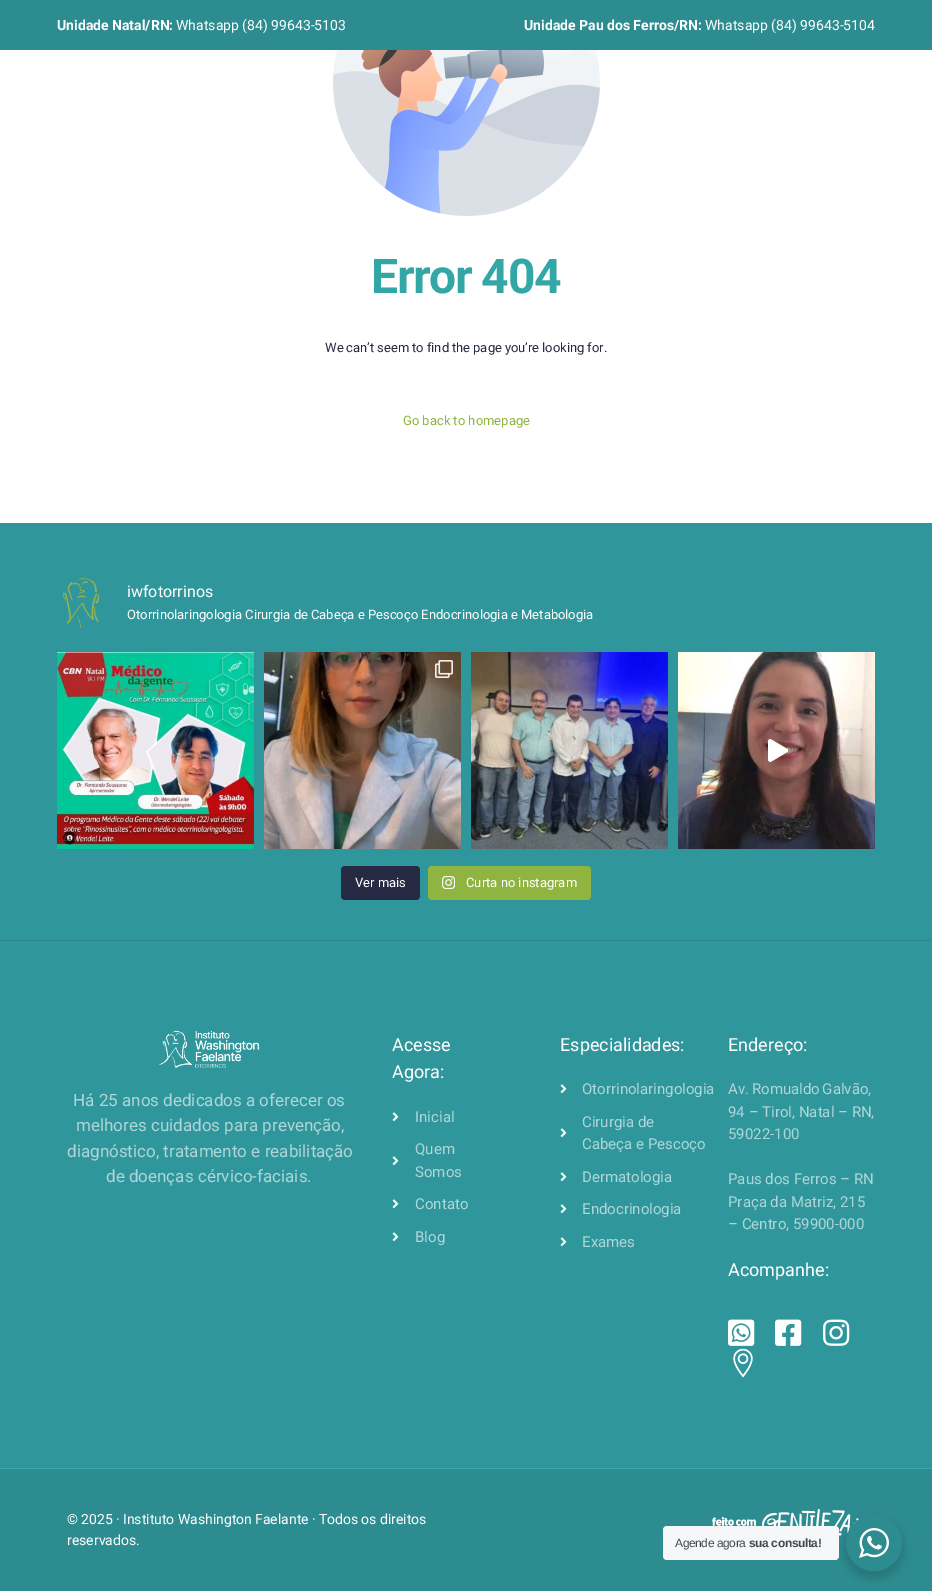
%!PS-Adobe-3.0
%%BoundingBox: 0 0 932 1591
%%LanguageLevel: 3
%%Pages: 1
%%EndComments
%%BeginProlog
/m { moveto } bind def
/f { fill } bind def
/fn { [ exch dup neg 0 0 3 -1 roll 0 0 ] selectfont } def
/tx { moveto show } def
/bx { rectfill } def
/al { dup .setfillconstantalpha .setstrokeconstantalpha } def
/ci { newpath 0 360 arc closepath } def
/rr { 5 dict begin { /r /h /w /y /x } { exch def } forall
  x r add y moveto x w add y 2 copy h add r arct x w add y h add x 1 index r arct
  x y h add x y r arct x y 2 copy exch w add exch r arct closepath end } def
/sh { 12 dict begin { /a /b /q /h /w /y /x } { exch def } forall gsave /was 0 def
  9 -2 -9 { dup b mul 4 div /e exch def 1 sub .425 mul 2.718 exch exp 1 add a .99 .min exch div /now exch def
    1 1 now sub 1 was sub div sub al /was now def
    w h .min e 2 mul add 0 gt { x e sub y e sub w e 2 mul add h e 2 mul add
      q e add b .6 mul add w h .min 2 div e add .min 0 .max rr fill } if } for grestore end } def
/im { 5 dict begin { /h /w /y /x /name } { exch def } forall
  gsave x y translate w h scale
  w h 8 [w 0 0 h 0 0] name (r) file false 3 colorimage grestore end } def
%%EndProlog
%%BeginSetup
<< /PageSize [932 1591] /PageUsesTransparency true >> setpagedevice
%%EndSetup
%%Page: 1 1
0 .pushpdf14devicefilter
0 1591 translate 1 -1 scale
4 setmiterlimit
1 setgray
0 0 932 1591 bx
0.176 0.549 0.565 setrgbcolor
0 0 932 50 bx
/Roboto-Bold 14 fn
1 setgray
(Unidade Natal/RN:) 57 30 tx
/Roboto-Regular 14 fn
(Whatsapp \(84\) 99643-5103) 176 30 tx
/Roboto-Bold 14 fn
(Unidade Pau dos Ferros/RN:) 524 30 tx
/Roboto-Regular 14 fn
(Whatsapp \(84\) 99643-5104) 705 30 tx
(image0.raw) 333 50 267 166 im
/Roboto-Bold 48 fn
0.2 0.651 0.651 setrgbcolor
371 293 m -1 0 32 -1.25 0 (Error 404) awidthshow
/Roboto-Regular 13 fn
0.149 0.165 0.263 setrgbcolor
325 352 m -0.25 0 32 (We can’t seem to find the page you’re looking for.) widthshow
0.561 0.706 0.251 setrgbcolor
(Go back to homepage) 403 425 tx
0.184 0.588 0.608 setrgbcolor
0 523 932 417 bx
0.169 0.529 0.545 setrgbcolor
0 940 932 1 bx
(image1.raw) 62 578 38 50 im
/Roboto-Regular 16 fn
1 setgray
(iwfotorrinos) 127 597 tx
/Roboto-Regular 13 fn
(Otorrinolaringologia Cirurgia de Cabeça e Pescoço Endocrinologia e Metabologia) 127 619 tx
(image2.raw) 57 652 197 197 im
(image3.raw) 264 652 197 197 im
(image4.raw) 435 660 18 18 im
(image5.raw) 471 652 197 197 im
(image6.raw) 678 652 197 197 im
(image7.raw) 768 739 20 23 im
0.149 0.165 0.263 setrgbcolor
341 866 79 34 4 rr f
1 setgray
(Ver mais) 355 887 tx
0.561 0.706 0.251 setrgbcolor
428 866 163 34 4 rr f
(image8.raw) 442 876 13 13 im
1 setgray
(Curta no instagram) 466 887 tx
0.184 0.588 0.608 setrgbcolor
0 941 932 527 bx
(image9.raw) 159 1030 101 38 im
/Roboto-Regular 17 fn
0.682 0.839 0.847 setrgbcolor
(Há 25 anos dedicados a oferecer os) 73 1106 tx
(melhores cuidados para prevenção,) 76 1131 tx
(diagnóstico, tratamento e reabilitação) 67 1157 tx
(de doenças cérvico-faciais.) 106 1182 tx
/Roboto-Regular 18 fn
1 setgray
(Acesse) 392 1051 tx
(Agora:) 392 1078 tx
(image10.raw) 392 1112 7 10 im
/Roboto-Regular 15 fn
0.682 0.839 0.847 setrgbcolor
(Inicial) 415 1122 tx
(image10.raw) 392 1156 7 10 im
(Quem) 415 1154 tx
(Somos) 415 1177 tx
(image10.raw) 392 1199 7 10 im
(Contato) 415 1209 tx
(image10.raw) 392 1232 7 10 im
(Blog) 415 1242 tx
/Roboto-Regular 18 fn
1 setgray
(Especialidades:) 560 1051 tx
(image10.raw) 560 1084 7 10 im
/Roboto-Regular 15 fn
0.682 0.839 0.847 setrgbcolor
(Otorrinolaringologia) 582 1094 tx
(image10.raw) 560 1128 7 10 im
(Cirurgia de) 582 1127 tx
(Cabeça e Pescoço) 582 1149 tx
(image10.raw) 560 1172 7 10 im
(Dermatologia) 582 1182 tx
(image10.raw) 560 1204 7 10 im
(Endocrinologia) 582 1214 tx
(image10.raw) 560 1237 7 10 im
(Exames) 582 1247 tx
/Roboto-Regular 18 fn
1 setgray
(Endereço:) 728 1051 tx
/Roboto-Regular 15 fn
0.682 0.839 0.847 setrgbcolor
728 1094 m -1 0 32 (Av. Romualdo Galvão,) widthshow
(94 – Tirol, Natal – RN,) 728 1117 tx
(59022-100) 728 1139 tx
(Paus dos Ferros – RN) 728 1184 tx
(Praça da Matriz, 215) 728 1207 tx
(– Centro, 59900-000) 728 1229 tx
/Roboto-Regular 18 fn
1 setgray
(Acompanhe:) 728 1276 tx
(image11.raw) 728 1319 27 27 im
(image12.raw) 775 1319 27 27 im
(image13.raw) 823 1319 27 27 im
(image14.raw) 733 1348 20 30 im
0.176 0.549 0.565 setrgbcolor
0 1469 932 122 bx
0.204 0.671 0.694 setrgbcolor
0 1468 932 1 bx
/Roboto-Regular 14 fn
1 setgray
67 1524 m -0.25 0 32 (© 2025 · Instituto Washington Faelante · Todos os direitos) widthshow
(reservados.) 67 1545 tx
(image15.raw) 712 1509 150 27 im
0 setgray
844 1519 60 60 30 4 0.14 sh
0.961 0.969 0.976 setrgbcolor
663 1526 176 34 4 rr f
/LiberationSans-Regular 12 fn
0.263 0.278 0.306 setrgbcolor
675 1547 m -0.4 0 (Agende agora) ashow
/LiberationSans-Bold 12 fn
749 1547 m -0.4 0 (sua consulta!) ashow
0.176 0.549 0.565 setrgbcolor
874 1543 28 ci f
(image16.raw) 859 1528 30 30 im
.poppdf14devicefilter showpage
%%EOF
